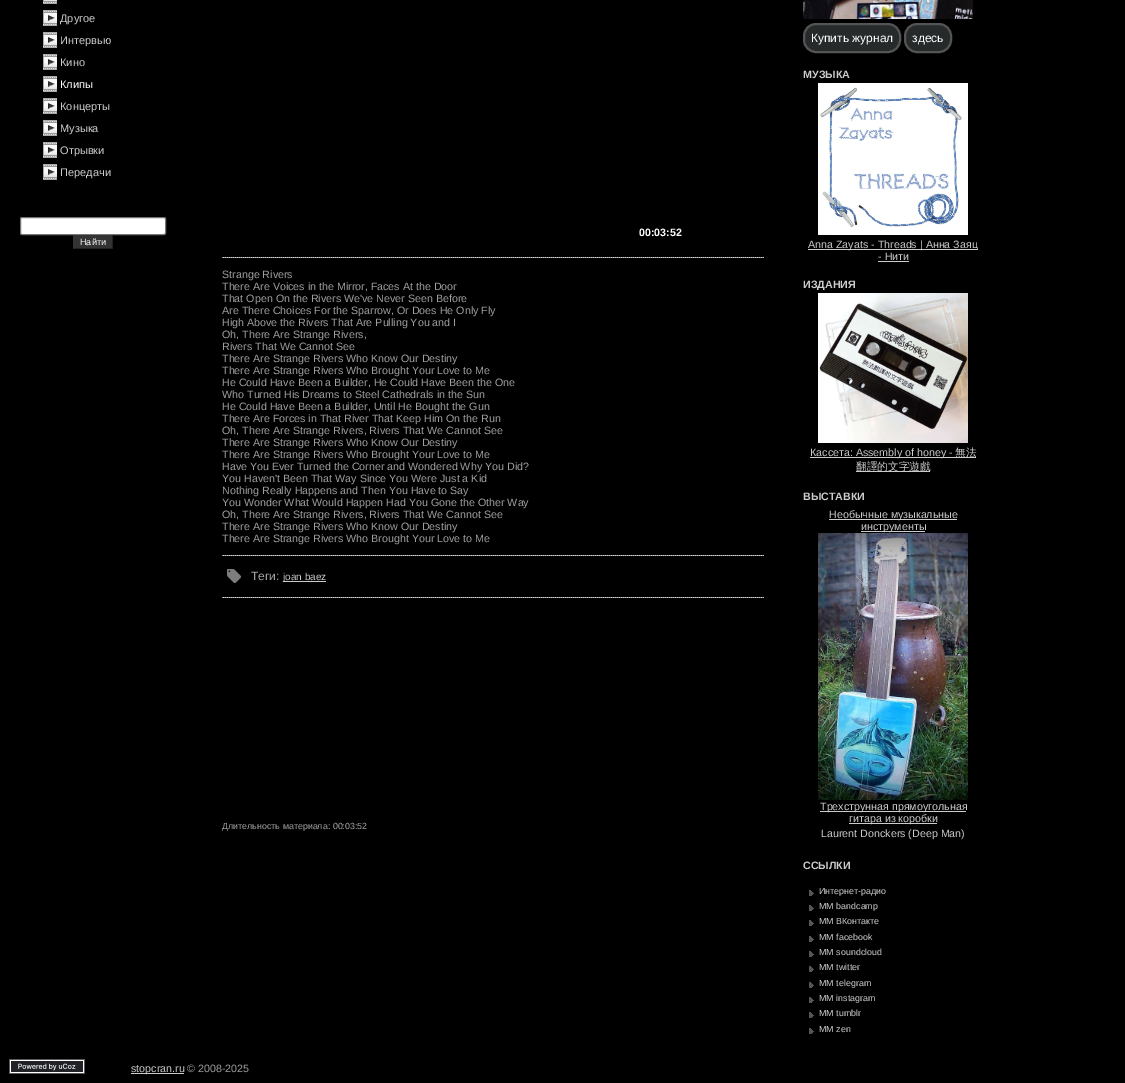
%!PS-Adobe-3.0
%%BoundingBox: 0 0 1125 1083
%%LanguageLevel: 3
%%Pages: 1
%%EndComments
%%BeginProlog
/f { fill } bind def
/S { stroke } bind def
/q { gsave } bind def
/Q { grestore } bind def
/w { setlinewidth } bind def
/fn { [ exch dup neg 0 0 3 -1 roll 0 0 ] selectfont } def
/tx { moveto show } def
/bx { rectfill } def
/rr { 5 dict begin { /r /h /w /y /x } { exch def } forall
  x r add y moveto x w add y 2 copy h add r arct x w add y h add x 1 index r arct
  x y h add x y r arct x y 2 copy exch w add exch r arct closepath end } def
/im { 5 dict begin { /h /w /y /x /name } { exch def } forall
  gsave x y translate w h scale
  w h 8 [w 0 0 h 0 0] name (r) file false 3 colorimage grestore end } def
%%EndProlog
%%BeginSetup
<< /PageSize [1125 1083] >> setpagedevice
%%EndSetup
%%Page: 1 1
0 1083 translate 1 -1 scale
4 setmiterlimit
0 setgray
0 0 1125 1083 bx
(image0.raw) 43 0 14 4 im
(image1.raw) 43 10 14 16 im
/LiberationSans-Regular 11 fn
0.8 setgray
(Другое) 60 22 tx
(image1.raw) 43 32 14 16 im
(Интервью) 60 44 tx
(image1.raw) 43 54 14 16 im
(Кино) 60 66 tx
(image1.raw) 43 76 14 16 im
1 setgray
(Клипы) 60 88 tx
(image1.raw) 43 98 14 16 im
0.8 setgray
(Концерты) 60 110 tx
(image1.raw) 43 120 14 16 im
(Музыка) 60 132 tx
(image1.raw) 43 142 14 16 im
(Отрывки) 60 154 tx
(image1.raw) 43 164 14 16 im
(Передачи) 60 176 tx
1 setgray
20.5 217.5 145 17 1.5 rr q f Q
0.463 setgray
S
0.2 setgray
74 235 38 13 bx
0.133 setgray
112 235 1 14 bx
73 248 40 1 bx
0.2 setgray
73 235 1 14 bx
/LiberationSans-Regular 9 fn
1 setgray
(Найти) 80 245 tx
/LiberationSans-Bold 10.7 fn
(00:03:52) 639 236 tx
0.839 setgray
222 257 542 1 bx
(image2.raw) 222 257 541 1 im
/LiberationSans-Regular 10.7 fn
0.624 setgray
(Strange Rivers) 222 278 tx
(There Are Voices in the Mirror, Faces At the Door) 222 290 tx
(That Open On the Rivers We've Never Seen Before) 222 302 tx
(Are There Choices For the Sparrow, Or Does He Only Fly) 222 314 tx
(High Above the Rivers That Are Pulling You and I) 222 326 tx
(Oh, There Are Strange Rivers,) 222 338 tx
(Rivers That We Cannot See) 222 350 tx
(There Are Strange Rivers Who Know Our Destiny) 222 362 tx
(There Are Strange Rivers Who Brought Your Love to Me) 222 374 tx
(He Could Have Been a Builder, He Could Have Been the One) 222 386 tx
(Who Turned His Dreams to Steel Cathedrals in the Sun) 222 398 tx
(He Could Have Been a Builder, Until He Bought the Gun) 222 410 tx
(There Are Forces in That River That Keep Him On the Run) 222 422 tx
(Oh, There Are Strange Rivers, Rivers That We Cannot See) 222 434 tx
(There Are Strange Rivers Who Know Our Destiny) 222 446 tx
(There Are Strange Rivers Who Brought Your Love to Me) 222 458 tx
(Have You Ever Turned the Corner and Wondered Why You Did?) 222 470 tx
(You Haven't Been That Way Since You Were Just a Kid) 222 482 tx
(Nothing Really Happens and Then You Have to Say) 222 494 tx
(You Wonder What Would Happen Had You Gone the Other Way) 222 506 tx
(Oh, There Are Strange Rivers, Rivers That We Cannot See) 222 518 tx
(There Are Strange Rivers Who Know Our Destiny) 222 530 tx
(There Are Strange Rivers Who Brought Your Love to Me) 222 542 tx
0.839 setgray
222 555 542 1 bx
(image2.raw) 222 555 541 1 im
(image3.raw) 227 569 14 14 im
/LiberationSans-Regular 12 fn
0.624 setgray
(Теги:) 251 580 tx
0.8 setgray
283 581 43 1 bx
/LiberationSans-Regular 10 fn
(joan baez) 283 580 tx
0.839 setgray
222 597 542 1 bx
(image2.raw) 222 597 541 1 im
/LiberationSans-Regular 8.9 fn
0.624 setgray
(Длительность материала: 00:03:52) 222 829 tx
(image4.raw) 803 0 170 19 im
0.153 0.165 0.169 setrgbcolor
804 24 96 28 12 rr q f Q
0.329 setgray
2 w
S
/LiberationSans-Regular 12 fn
1 setgray
(Купить журнал) 811 42 tx
0.153 0.165 0.169 setrgbcolor
905 24 46 28 12 rr q f Q
0.329 setgray
S
1 setgray
(здесь) 912 42 tx
/LiberationSans-Bold 10.7 fn
0.8 setgray
(МУЗЫКА) 803 78 tx
(image5.raw) 818 83 150 152 im
808 249 170 1 bx
/LiberationSans-Regular 10.7 fn
(Anna Zayats - Threads | Анна Заяц) 808 248 tx
(- Нити) 878 260 tx
878 261 31 1 bx
/LiberationSans-Bold 10.7 fn
(ИЗДАНИЯ) 803 288 tx
(image6.raw) 818 293 150 150 im
810 457 166 1 bx
/LiberationSans-Regular 10.7 fn
(Кассета: Assembly of honey -) 810 456 tx
/WenQuanYiZenHei-Medium 10.7 fn
(無法) 955 456 tx
856 471 74 1 bx
(翻譯的文字遊戲) 856 470 tx
/LiberationSans-Bold 10.7 fn
(ВЫСТАВКИ) 803 500 tx
829 519 128 1 bx
/LiberationSans-Regular 10.7 fn
(Необычные музыкальные) 829 518 tx
861 531 64 1 bx
(инструменты) 861 530 tx
(image7.raw) 818 533 150 267 im
820 811 146 1 bx
(Трехструнная прямоугольная) 820 810 tx
849 823 88 1 bx
(гитара из коробки) 849 822 tx
(Laurent Donckers \(Deep Man\)) 821 837 tx
/LiberationSans-Bold 10.7 fn
(ССЫЛКИ) 803 869 tx
(image8.raw) 809 890 5 6 im
/LiberationSans-Regular 8.9 fn
(Интернет-радио) 819 894 tx
(image8.raw) 809 905 5 6 im
(MM bandcamp) 819 909 tx
(image8.raw) 809 920 5 6 im
(MM ВКонтакте) 819 924 tx
(image8.raw) 809 936 5 6 im
(MM facebook) 819 940 tx
(image8.raw) 809 951 5 6 im
(MM soundcloud) 819 955 tx
(image8.raw) 809 966 5 6 im
(MM twitter) 819 970 tx
(image8.raw) 809 982 5 6 im
(MM telegram) 819 986 tx
(image8.raw) 809 997 5 6 im
(MM instagram) 819 1001 tx
(image8.raw) 809 1012 5 6 im
(MM tumblr) 819 1016 tx
(image8.raw) 809 1028 5 6 im
(MM zen) 819 1032 tx
(image9.raw) 9 1059 76 15 im
131 1073 53 1 bx
/LiberationSans-Regular 10.7 fn
(stopcran.ru) 131 1072 tx
0.624 setgray
(© 2008-2025) 187 1072 tx
showpage
%%EOF
